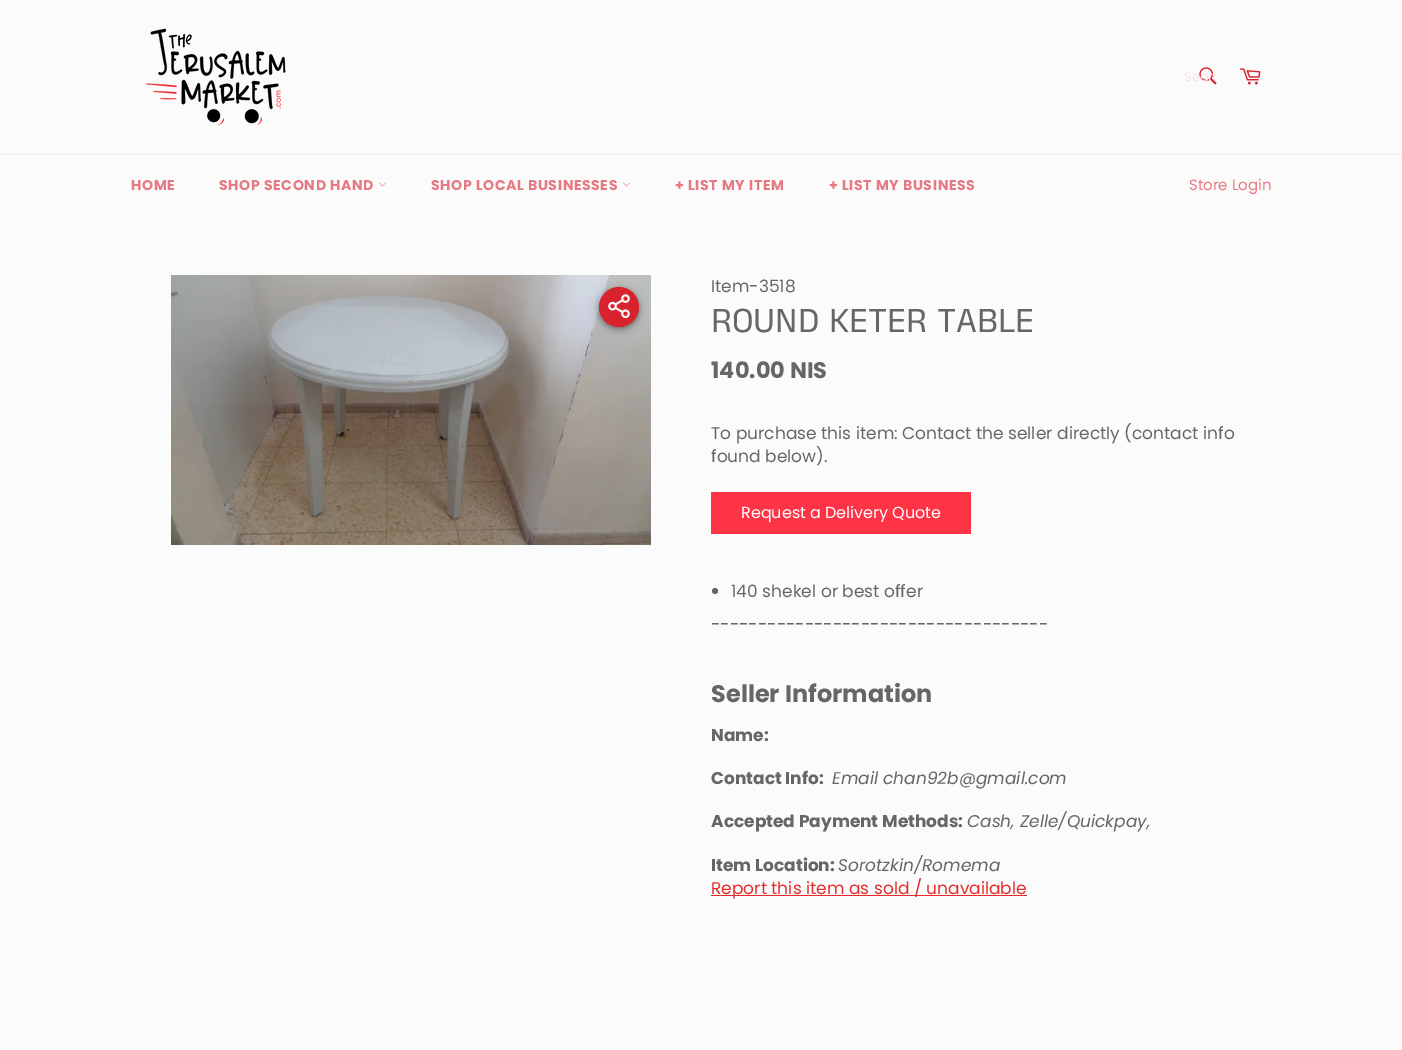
%!PS-Adobe-3.0
%%BoundingBox: 0 0 1402 1050
%%LanguageLevel: 3
%%Pages: 1
%%EndComments
%%BeginProlog
/m { moveto } bind def
/f { fill } bind def
/q { gsave } bind def
/Q { grestore } bind def
/fn { [ exch dup neg 0 0 3 -1 roll 0 0 ] selectfont } def
/tx { moveto show } def
/bx { rectfill } def
/al { dup .setfillconstantalpha .setstrokeconstantalpha } def
/ci { newpath 0 360 arc closepath } def
/rr { 5 dict begin { /r /h /w /y /x } { exch def } forall
  x r add y moveto x w add y 2 copy h add r arct x w add y h add x 1 index r arct
  x y h add x y r arct x y 2 copy exch w add exch r arct closepath end } def
/sh { 12 dict begin { /a /b /q /h /w /y /x } { exch def } forall gsave /was 0 def
  9 -2 -9 { dup b mul 4 div /e exch def 1 sub .425 mul 2.718 exch exp 1 add a .99 .min exch div /now exch def
    1 1 now sub 1 was sub div sub al /was now def
    w h .min e 2 mul add 0 gt { x e sub y e sub w e 2 mul add h e 2 mul add
      q e add b .6 mul add w h .min 2 div e add .min 0 .max rr fill } if } for grestore end } def
/im { 5 dict begin { /h /w /y /x /name } { exch def } forall
  gsave x y translate w h scale
  w h 8 [w 0 0 h 0 0] name (r) file false 3 colorimage grestore end } def
%%EndProlog
%%BeginSetup
<< /PageSize [1402 1050] /PageUsesTransparency true >> setpagedevice
%%EndSetup
%%Page: 1 1
0 .pushpdf14devicefilter
0 1050 translate 1 -1 scale
4 setmiterlimit
0.984 setgray
0 0 1402 1050 bx
(image0.raw) 146 28 140 97 im
(image1.raw) 1199 67 18 18 im
q
1184 67 32 20 rectclip
/Poppins-Regular 13 fn
0.969 0.89 0.894 setrgbcolor
(Searc) 1184 81 tx
Q
(image2.raw) 1239 68 22 17 im
0.933 setgray
0 154 1402 1 bx
/Poppins-Bold 14.1 fn
0.902 0.475 0.506 setrgbcolor
131 190 m 0.6 0 (HOME) ashow
219 190 m 0.6 0 (SHOP SECOND HAND) ashow
(image3.raw) 379 182 7 5 im
431 190 m 0.6 0 (SHOP LOCAL BUSINESSES) ashow
(image3.raw) 623 182 7 5 im
675 190 m 0.6 0 (+ LIST MY ITEM) ashow
829 190 m 0.6 0 (+ LIST MY BUSINESS) ashow
/Poppins-Regular 15 fn
(Store Login) 1189 190 tx
(image5.raw) 171 275 480 270 im
0 setgray
599 289 40 40 20 5 0.22 sh
599 289 40 40 20 2.5 0.26 sh
0.847 0.137 0.184 setrgbcolor
619 307 20 ci f
(image4.raw) 608 294 22 25 im
/Poppins-Regular 17 fn
0.4 setgray
(Item-3518) 711 292 tx
/AnekTamil-Regular 36 fn
(ROUND KETER TABLE) 711 332 tx
/Poppins-Bold 22.5 fn
(140.00 NIS) 711 378 tx
/Poppins-Regular 17 fn
(To purchase this item: Contact the seller directly \(contact info) 711 439 tx
(found below\).) 711 462 tx
1 0.2 0.275 setrgbcolor
711 492 260 42 bx
/Poppins-Regular 16 fn
1 setgray
(Request a Delivery Quote) 741 518 tx
0.4 setgray
715 591 3 ci f
/Poppins-Regular 17 fn
(140 shekel or best offer) 731 597 tx
(------------------------------------) 711 630 tx
/Poppins-Bold 24 fn
(Seller Information) 711 702 tx
/Poppins-Bold 17 fn
(Name:) 711 741 tx
(Contact Info:) 711 784 tx
/Poppins-Italic 17 fn
(Email chan92b@gmail.com) 832 784 tx
/Poppins-Bold 17 fn
(Accepted Payment Methods:) 711 827 tx
/Poppins-Italic 17 fn
(Cash, Zelle/Quickpay,) 967 827 tx
/Poppins-Bold 17 fn
(Item Location:) 711 871 tx
/Poppins-Italic 17 fn
(Sorotzkin/Romema) 838 871 tx
0.89 0.173 0.169 setrgbcolor
711 895 316 1 bx
/Poppins-Regular 17 fn
(Report this item as sold / unavailable) 711 894 tx
.poppdf14devicefilter showpage
%%EOF
